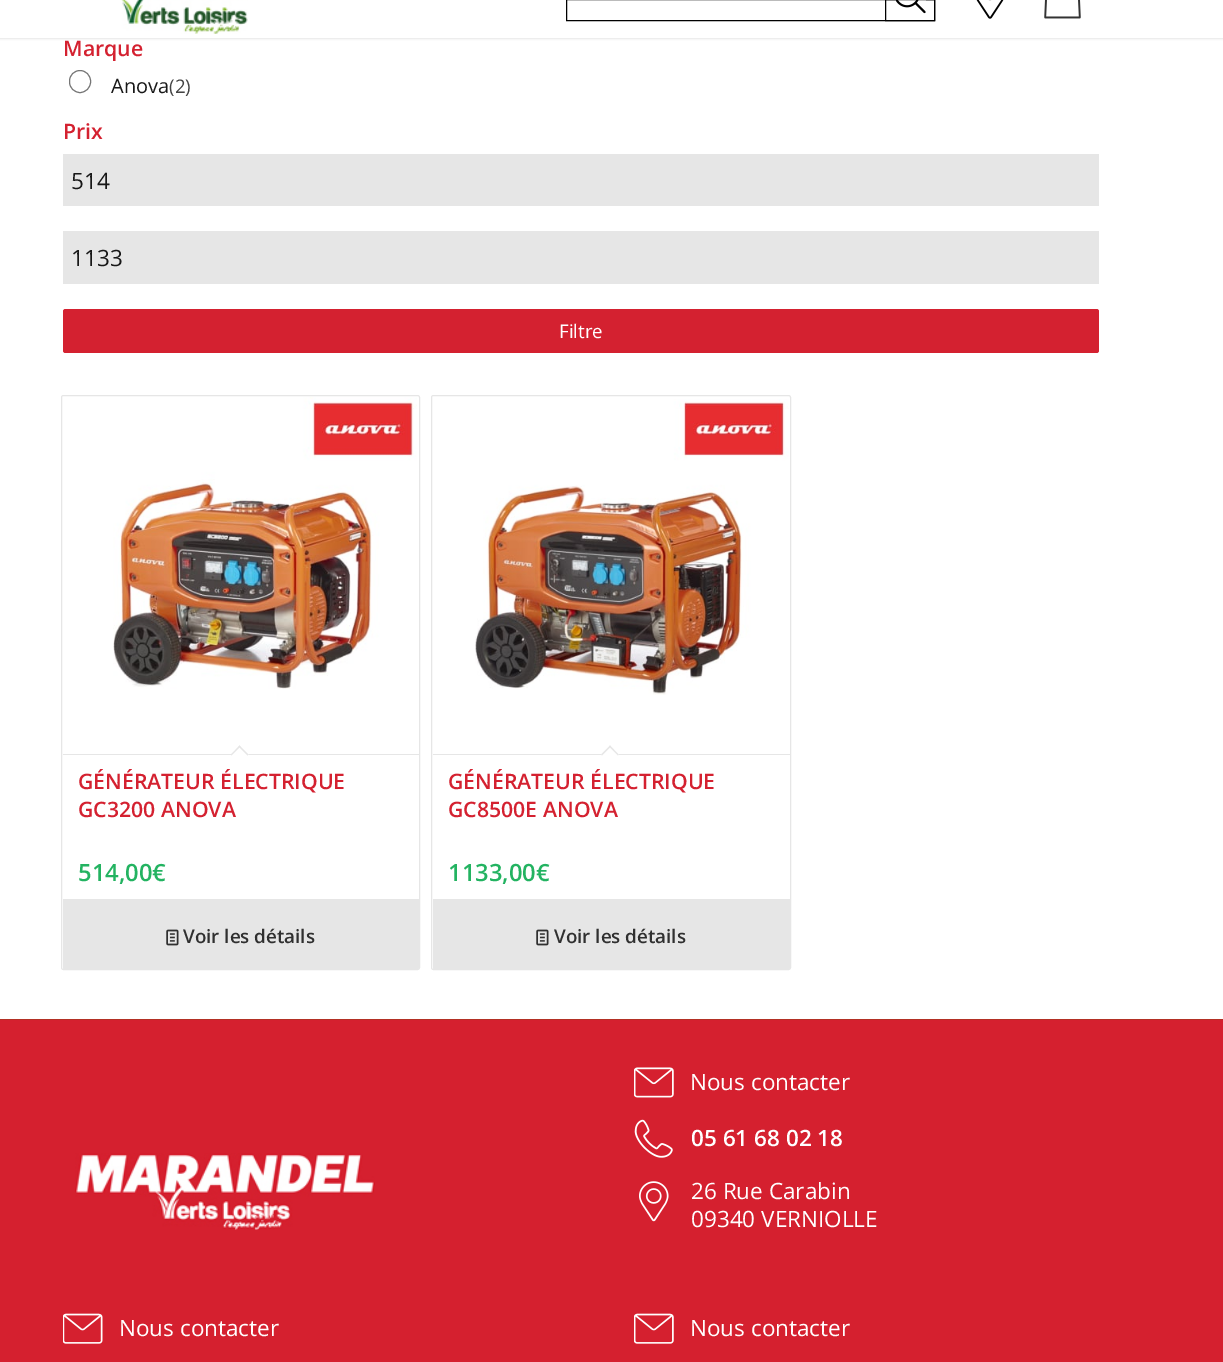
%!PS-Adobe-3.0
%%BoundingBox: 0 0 1223 1362
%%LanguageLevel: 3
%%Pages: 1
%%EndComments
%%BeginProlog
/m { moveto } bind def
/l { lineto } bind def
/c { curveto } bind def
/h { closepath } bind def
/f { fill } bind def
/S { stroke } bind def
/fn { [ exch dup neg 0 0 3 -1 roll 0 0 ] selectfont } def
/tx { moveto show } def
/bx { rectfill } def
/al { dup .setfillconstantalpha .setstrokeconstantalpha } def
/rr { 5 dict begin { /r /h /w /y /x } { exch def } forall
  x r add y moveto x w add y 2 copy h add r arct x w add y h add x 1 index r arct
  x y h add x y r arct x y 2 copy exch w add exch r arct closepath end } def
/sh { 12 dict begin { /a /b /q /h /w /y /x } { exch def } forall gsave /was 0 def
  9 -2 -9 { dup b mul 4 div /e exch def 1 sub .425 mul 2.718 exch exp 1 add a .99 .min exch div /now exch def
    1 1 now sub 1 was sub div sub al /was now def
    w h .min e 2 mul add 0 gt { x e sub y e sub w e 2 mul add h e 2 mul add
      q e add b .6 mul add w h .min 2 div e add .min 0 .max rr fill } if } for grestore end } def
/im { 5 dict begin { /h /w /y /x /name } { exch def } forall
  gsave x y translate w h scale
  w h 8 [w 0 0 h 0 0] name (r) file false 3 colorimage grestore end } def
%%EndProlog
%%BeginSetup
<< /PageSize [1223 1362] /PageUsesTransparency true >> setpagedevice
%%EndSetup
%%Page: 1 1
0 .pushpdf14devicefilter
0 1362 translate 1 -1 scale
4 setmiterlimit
1 setgray
0 0 1223 1362 bx
0 setgray
-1 -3 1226 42 0 1 0.1 sh
1 setgray
0 0 1223 38 bx
0 setgray
566.5 -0.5 368 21 rectstroke
(image0.raw) 895 0 31 14 im
885.5 -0.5 49 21 rectstroke
(image1.raw) 976 0 28 19 im
(image2.raw) 121 0 127 34 im
(image3.raw) 1044 0 37 19 im
/OpenSans-SemiBold 21.25 fn
0.831 0.129 0.188 setrgbcolor
(Marque) 63 56 tx
0.463 setgray
69.5 70.5 21 22 10.5 rr S
/OpenSans-Regular 20 fn
0.094 setgray
(Anova) 111 93 tx
/OpenSans-Regular 18.75 fn
0.267 setgray
(\(2\)) 169 93 tx
/OpenSans-SemiBold 21.25 fn
0.831 0.129 0.188 setrgbcolor
(Prix) 63 139 tx
0.902 setgray
63 154 1036 52 bx
/OpenSans-Regular 22.5 fn
0.094 setgray
(514) 71 189 tx
0.902 setgray
63 231 1036 53 bx
0.094 setgray
(1133) 71 266 tx
0.831 0.129 0.188 setrgbcolor
63 309 1036 44 2.5 rr f
/OpenSans-Regular 18.75 fn
1 setgray
(Filtre) 559 338 tx
0.902 setgray
61.5 395.5 358 574 2 rr S
(image4.raw) 113 397 304 292 im
63 754 356 1 bx
1 setgray
239.5 745.5 m 248.5 754.5 l 239.5 763 l 231 754.5 l h f
0.902 setgray
239.5 745.5 m 248.5 754.5 l 247.5 755.5 l 238.5 746.5 l h f
239.5 745.5 m 240.5 746.5 l 231.5 755.5 l 231 754.5 l h f
/OpenSans-SemiBold 21.25 fn
0.831 0.129 0.188 setrgbcolor
(GÉNÉRATEUR ÉLECTRIQUE) 78 789 tx
(GC3200 ANOVA) 78 817 tx
/OpenSans-SemiBold 23.75 fn
0.137 0.702 0.38 setrgbcolor
(514,00€) 78 881 tx
0.902 setgray
63 899 m 419 899 l 419 968 l 419 968.5 418.5 969 418 969 c 64 969 l 63.5 969 63 968.5 63 968 c h f
(image5.raw) 166 929 13 17 im
/OpenSans-SemiBold 18.75 fn
0.188 setgray
(Voir les détails) 183 943 tx
0.902 setgray
431.5 395.5 359 574 2 rr S
(image6.raw) 475 399 314 296 im
433 754 357 1 bx
1 setgray
610 745.5 m 618.5 754.5 l 610 763 l 601 754.5 l h f
0.902 setgray
610 745.5 m 618.5 754.5 l 618 755.5 l 609 746.5 l h f
610 745.5 m 611 746.5 l 602 755.5 l 601 754.5 l h f
/OpenSans-SemiBold 21.25 fn
0.831 0.129 0.188 setrgbcolor
(GÉNÉRATEUR ÉLECTRIQUE) 448 789 tx
(GC8500E ANOVA) 448 817 tx
/OpenSans-SemiBold 23.75 fn
0.137 0.702 0.38 setrgbcolor
(1133,00€) 448 881 tx
0.902 setgray
433 899 m 790 899 l 790 968 l 790 968.5 789.5 969 789 969 c 434 969 l 433.5 969 433 968.5 433 968 c h f
(image5.raw) 536 929 13 17 im
/OpenSans-SemiBold 18.75 fn
0.188 setgray
(Voir les détails) 554 943 tx
0.835 0.125 0.184 setrgbcolor
0 1020 1223 342 bx
0.702 0.188 0.141 setrgbcolor
0 1019 1223 1 bx
(image7.raw) 75 1153 300 77 im
(image8.raw) 634 1067 40 31 im
/OpenSans-Regular 22.5 fn
1 setgray
(Nous contacter) 690 1090 tx
(image9.raw) 634 1119 39 39 im
/OpenSans-SemiBold 22.5 fn
(05 61 68 02 18) 691 1146 tx
(image10.raw) 639 1181 30 41 im
/OpenSans-Regular 22.5 fn
(26 Rue Carabin) 691 1199 tx
(09340 VERNIOLLE) 691 1227 tx
(image11.raw) 63 1313 40 31 im
(Nous contacter) 119 1336 tx
(image12.raw) 634 1313 40 31 im
(Nous contacter) 690 1336 tx
.poppdf14devicefilter showpage
%%EOF
